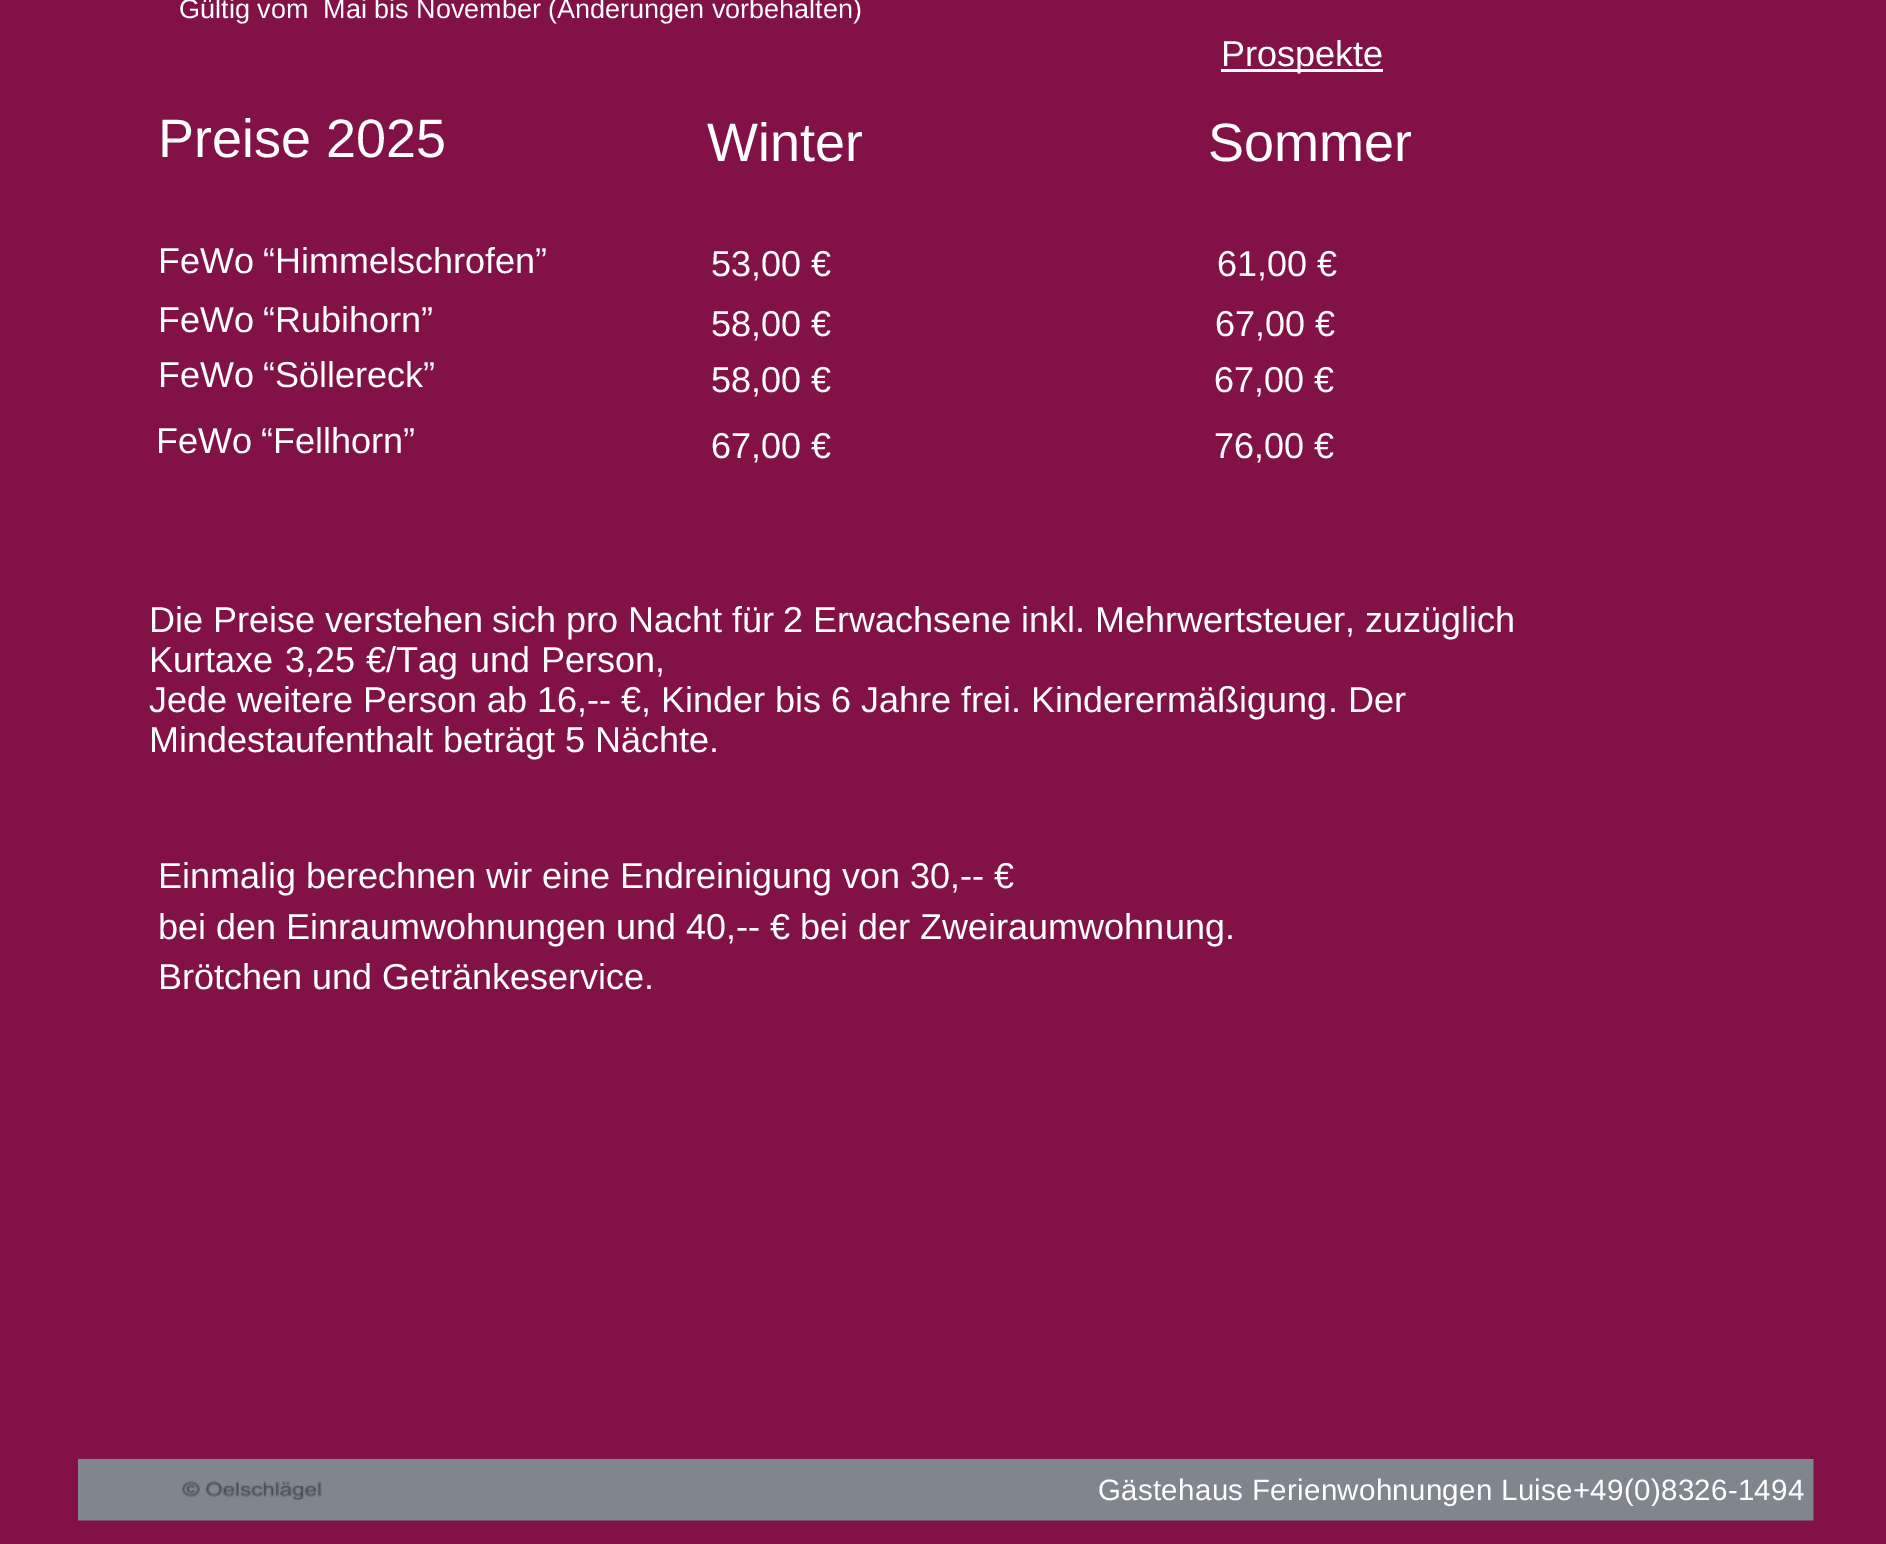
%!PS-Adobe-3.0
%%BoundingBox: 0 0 1886 1544
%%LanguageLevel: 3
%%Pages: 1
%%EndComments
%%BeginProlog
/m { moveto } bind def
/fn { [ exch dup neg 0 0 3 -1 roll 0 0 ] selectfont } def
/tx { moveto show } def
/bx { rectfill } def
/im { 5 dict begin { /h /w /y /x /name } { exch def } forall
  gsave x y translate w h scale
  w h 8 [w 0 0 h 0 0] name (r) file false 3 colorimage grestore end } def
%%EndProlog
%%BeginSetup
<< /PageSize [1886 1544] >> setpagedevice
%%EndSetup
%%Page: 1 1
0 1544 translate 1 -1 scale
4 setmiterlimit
0.51 0.071 0.271 setrgbcolor
0 0 1886 1544 bx
/LiberationSans-Regular 27 fn
1 setgray
(Gültig vom  Mai bis November \(Änderungen vorbehalten\)) 179 18 tx
1221 69 162 3 bx
/LiberationSans-Regular 36 fn
(Prospekte) 1221 66 tx
/LiberationSans-Regular 54 fn
(Preise 2025) 158 157 tx
(Winter) 707 161 tx
(Sommer) 1208 161 tx
/LiberationSans-Regular 36 fn
158 273 m -1 0 32 (FeWo “Himmelschrofen”) widthshow
(53,00 €) 711 276 tx
(61,00 €) 1217 276 tx
158 332 m -1 0 32 (FeWo “Rubihorn”) widthshow
(58,00 €) 711 336 tx
(67,00 €) 1215 336 tx
158 387 m -1 0 32 (FeWo “Söllereck”) widthshow
(58,00 €) 711 392 tx
(67,00 €) 1214 392 tx
156 453 m -1 0 32 (FeWo “Fellhorn”) widthshow
(67,00 €) 711 458 tx
(76,00 €) 1214 458 tx
149 632 m -0.25 0 32 (Die Preise verstehen sich pro Nacht für 2 Erwachsene inkl. Mehrwertsteuer, zuzüglich) widthshow
149 672 m 1.5 0 32 (Kurtaxe 3,25 €/Tag und Person,) widthshow
(Jede weitere Person ab 16,-- €, Kinder bis 6 Jahre frei. Kinderermäßigung. Der) 149 712 tx
(Mindestaufenthalt beträgt 5 Nächte.) 149 752 tx
(Einmalig berechnen wir eine Endreinigung von 30,-- €) 158 888 tx
(bei den Einraumwohnungen und 40,-- € bei der Zweiraumwohnung.) 158 939 tx
(Brötchen und Getränkeservice.) 158 989 tx
(image0.raw) 78 1459 1736 62 im
/LiberationSans-Regular 29.5 fn
1098 1500 m 0.3 0 (Gästehaus Ferienwohnungen Luise+49\(0\)8326-1494) ashow
showpage
%%EOF
